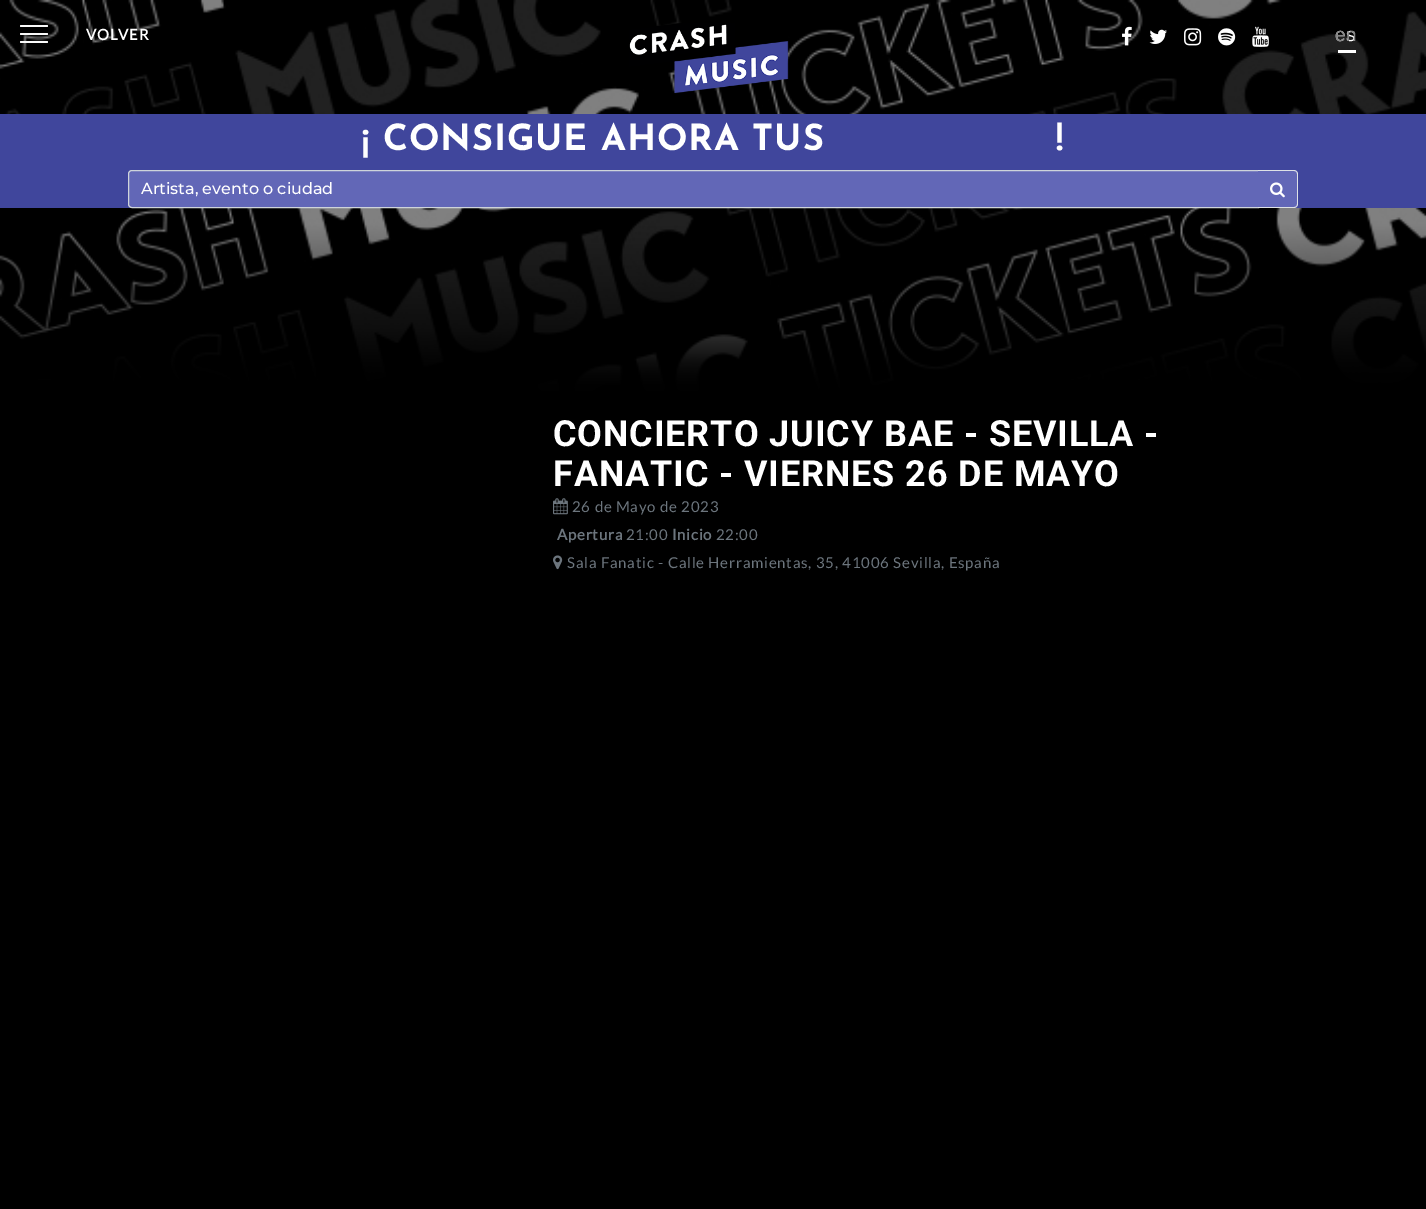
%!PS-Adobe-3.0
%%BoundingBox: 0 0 1426 1209
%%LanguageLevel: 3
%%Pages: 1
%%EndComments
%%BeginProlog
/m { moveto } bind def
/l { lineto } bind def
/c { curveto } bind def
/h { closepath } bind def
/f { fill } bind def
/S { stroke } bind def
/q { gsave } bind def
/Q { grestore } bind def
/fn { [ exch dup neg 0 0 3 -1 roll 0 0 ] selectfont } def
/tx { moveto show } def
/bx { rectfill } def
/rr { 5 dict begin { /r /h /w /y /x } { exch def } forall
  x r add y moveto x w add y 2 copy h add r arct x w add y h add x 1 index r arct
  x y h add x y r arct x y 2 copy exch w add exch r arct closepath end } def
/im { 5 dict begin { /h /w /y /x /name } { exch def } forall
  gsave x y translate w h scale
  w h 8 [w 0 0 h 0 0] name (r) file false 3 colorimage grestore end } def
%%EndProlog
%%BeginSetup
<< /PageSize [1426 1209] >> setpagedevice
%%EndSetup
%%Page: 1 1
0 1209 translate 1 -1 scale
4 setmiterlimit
1 setgray
0 0 1426 1209 bx
(image0.raw) 0 0 1426 395 im
/Lato-Bold 15 fn
86 40 m 0.75 0 (VOLVER) ashow
0.98 setgray
20 33 28 2 1 rr f
20 25 28 2 1 rr f
20 41 28 2 1 rr f
(image1.raw) 629 23 160 70 im
(image2.raw) 1122 26 10 20 im
(image3.raw) 1149 29 18 15 im
(image4.raw) 1184 28 18 18 im
(image5.raw) 1218 28 18 18 im
(image6.raw) 1252 26 17 21 im
/LiberationSans-Regular 19 fn
1 setgray
1335 41 m 0.75 0 (es) ashow
0.518 setgray
1335 41 m 0.75 0 (en) ashow
1 setgray
1338 50 18 3 bx
0.251 0.275 0.612 setrgbcolor
0 114 1426 94 bx
/JosefinSans-Bold 36 fn
1 setgray
362 150 m 0.9 0 (¡ CONSIGUE AHORA TUS) ashow
1056 150 m 0.9 0 (!) ashow
0.384 0.404 0.718 setrgbcolor
132 170.5 m 1258.5 170.5 l 1258.5 207.5 l 132 207.5 l 130 207.5 128.5 206 128.5 204 c 128.5 174 l 128.5 172 130 170.5 132 170.5 c h q f Q
0.808 0.831 0.855 setrgbcolor
S
/Montserrat-Medium 16 fn
1 setgray
(Artista, evento o ciudad) 141 194 tx
0.384 0.404 0.718 setrgbcolor
1258 170 m 1294 170 l 1296 170 1298 172 1298 174 c 1298 204 l 1298 206 1296 208 1294 208 c 1258 208 l h f
0.871 0.886 0.902 setrgbcolor
1258 170 m 1294 170 l 1296 170 1298 172 1298 174 c 1298 204 l 1298 206 1296 208 1294 208 c 1258 208 l h 1258 171 m 1294 171 l 1296 171 1297 172 1297 174 c 1297 204 l 1297 206 1296 207 1294 207 c 1258 207 l h eofill
(image7.raw) 1270 182 15 16 im
0 setgray
0 395 1426 814 bx
/Roboto-Bold 36 fn
1 setgray
553 446 m 0.9 0 (CONCIERTO JUICY BAE - SEVILLA -) ashow
553 486 m 0.9 0 (FANATIC - VIERNES 26 DE MAYO) ashow
(image8.raw) 553 498 15 17 im
/Lato-Regular 15 fn
0.424 0.459 0.49 setrgbcolor
572 512 m 0.75 0 (26 de Mayo de 2023) ashow
/Lato-Bold 15 fn
557 540 m 0.75 0 (Apertura) ashow
/Lato-Regular 15 fn
626 540 m 0.75 0 (21:00) ashow
/Lato-Bold 15 fn
672 540 m 0.75 0 (Inicio) ashow
/Lato-Regular 15 fn
716 540 m 0.75 0 (22:00) ashow
(image9.raw) 553 555 10 15 im
567 568 m 0.75 0 (Sala Fanatic - Calle Herramientas, 35, 41006 Sevilla, España) ashow
showpage
%%EOF
